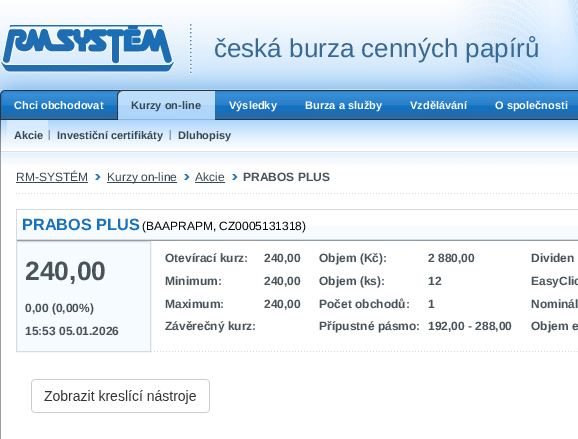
%!PS-Adobe-3.0
%%BoundingBox: 0 0 578 439
%%LanguageLevel: 3
%%Pages: 1
%%EndComments
%%BeginProlog
/m { moveto } bind def
/l { lineto } bind def
/h { closepath } bind def
/f { fill } bind def
/S { stroke } bind def
/q { gsave } bind def
/Q { grestore } bind def
/fn { [ exch dup neg 0 0 3 -1 roll 0 0 ] selectfont } def
/tx { moveto show } def
/bx { rectfill } def
/im { 5 dict begin { /h /w /y /x /name } { exch def } forall
  gsave x y translate w h scale
  w h 8 [w 0 0 h 0 0] name (r) file false 3 colorimage grestore end } def
%%EndProlog
%%BeginSetup
<< /PageSize [578 439] >> setpagedevice
%%EndSetup
%%Page: 1 1
0 439 translate 1 -1 scale
4 setmiterlimit
1 setgray
0 0 578 439 bx
(image0.raw) 0 0 578 90 im
(image1.raw) 0 23 194 52 im
/LiberationSans-Regular 26 fn
0.22 0.412 0.58 setrgbcolor
(česká burza cenných papírů) 214 57 tx
0.608 0.616 0.624 setrgbcolor
0 153 1 286 bx
(image2.raw) 0 120 1 33 im
(image3.raw) 0 90 578 30 im
/LiberationSans-Bold 11 fn
1 setgray
(Chci obchodovat) 14 109 tx
(image4.raw) 117 90 98 30 im
0.216 0.282 0.322 setrgbcolor
(Kurzy on-line) 131 109 tx
1 setgray
(Výsledky) 229 109 tx
(Burza a služby) 305 109 tx
(Vzdělávání) 410 109 tx
(O společnosti) 495 109 tx
(image5.raw) 1 120 577 28 im
(image6.raw) 48 130 2 10 im
(image7.raw) 7 120 41 19 im
0.216 0.282 0.322 setrgbcolor
(Akcie) 14 139 tx
(image6.raw) 169 130 2 10 im
(Investiční certifikáty) 57 139 tx
(Dluhopisy) 178 139 tx
(image8.raw) 1 152 577 13 im
0.851 0.886 0.914 setrgbcolor
1 151 577 1 bx
(image9.raw) 16 193 562 1 im
/LiberationSans-Regular 12 fn
0.216 0.282 0.322 setrgbcolor
(RM-SYSTÉM) 16 181 tx
0.22 0.282 0.341 setrgbcolor
16 182 72 1 bx
(image10.raw) 95 173 6 8 im
107 182 70 1 bx
0.216 0.282 0.322 setrgbcolor
(Kurzy on-line) 107 181 tx
(image10.raw) 184 173 6 8 im
(Akcie) 195 181 tx
0.22 0.282 0.341 setrgbcolor
195 182 30 1 bx
(image10.raw) 232 173 6 8 im
/LiberationSans-Bold 12 fn
0.286 0.329 0.353 setrgbcolor
(PRABOS PLUS) 243 181 tx
0.961 0.984 1 setrgbcolor
17 226 561 13 bx
0.831 0.859 0.89 setrgbcolor
16 209 562 1 bx
0.573 0.612 0.647 setrgbcolor
16 240 562 1 bx
0.831 0.859 0.89 setrgbcolor
16 209 1 32 bx
17 239 561 1 bx
/LiberationSans-Bold 16.25 fn
0.082 0.447 0.749 setrgbcolor
(PRABOS PLUS) 22 230 tx
/LiberationSans-Regular 12 fn
0 setgray
(\(BAAPRAPM, CZ0005131318\)) 142 230 tx
(image11.raw) 151 351 427 1 im
0.965 0.984 1 setrgbcolor
16.5 241.5 m 150.5 241.5 l 150.5 351.5 l 16.5 351.5 l h q f Q
0.831 0.859 0.89 setrgbcolor
S
/LiberationSans-Bold 26.5 fn
0.286 0.329 0.353 setrgbcolor
(240,00) 25 280 tx
/LiberationSans-Bold 12 fn
(0,00 \(0,00%\)) 25 312 tx
(15:53 05.01.2026) 25 335 tx
(Otevírací kurz:) 165 262 tx
(240,00) 264 262 tx
(Objem \(Kč\):) 319 262 tx
(2 880,00) 428 262 tx
(Dividen) 531 262 tx
(Minimum:) 165 285 tx
(240,00) 264 285 tx
(Objem \(ks\):) 319 285 tx
(12) 428 285 tx
(EasyClic) 531 285 tx
(Maximum:) 165 308 tx
(240,00) 264 308 tx
(Počet obchodů:) 319 308 tx
(1) 428 308 tx
(Nominál) 531 308 tx
(Závěrečný kurz:) 165 330 tx
(Přípustné pásmo:) 319 330 tx
(192,00 - 288,00) 428 330 tx
(Objem e) 531 330 tx
(image12.raw) 31 379 179 34 im
showpage
%%EOF
